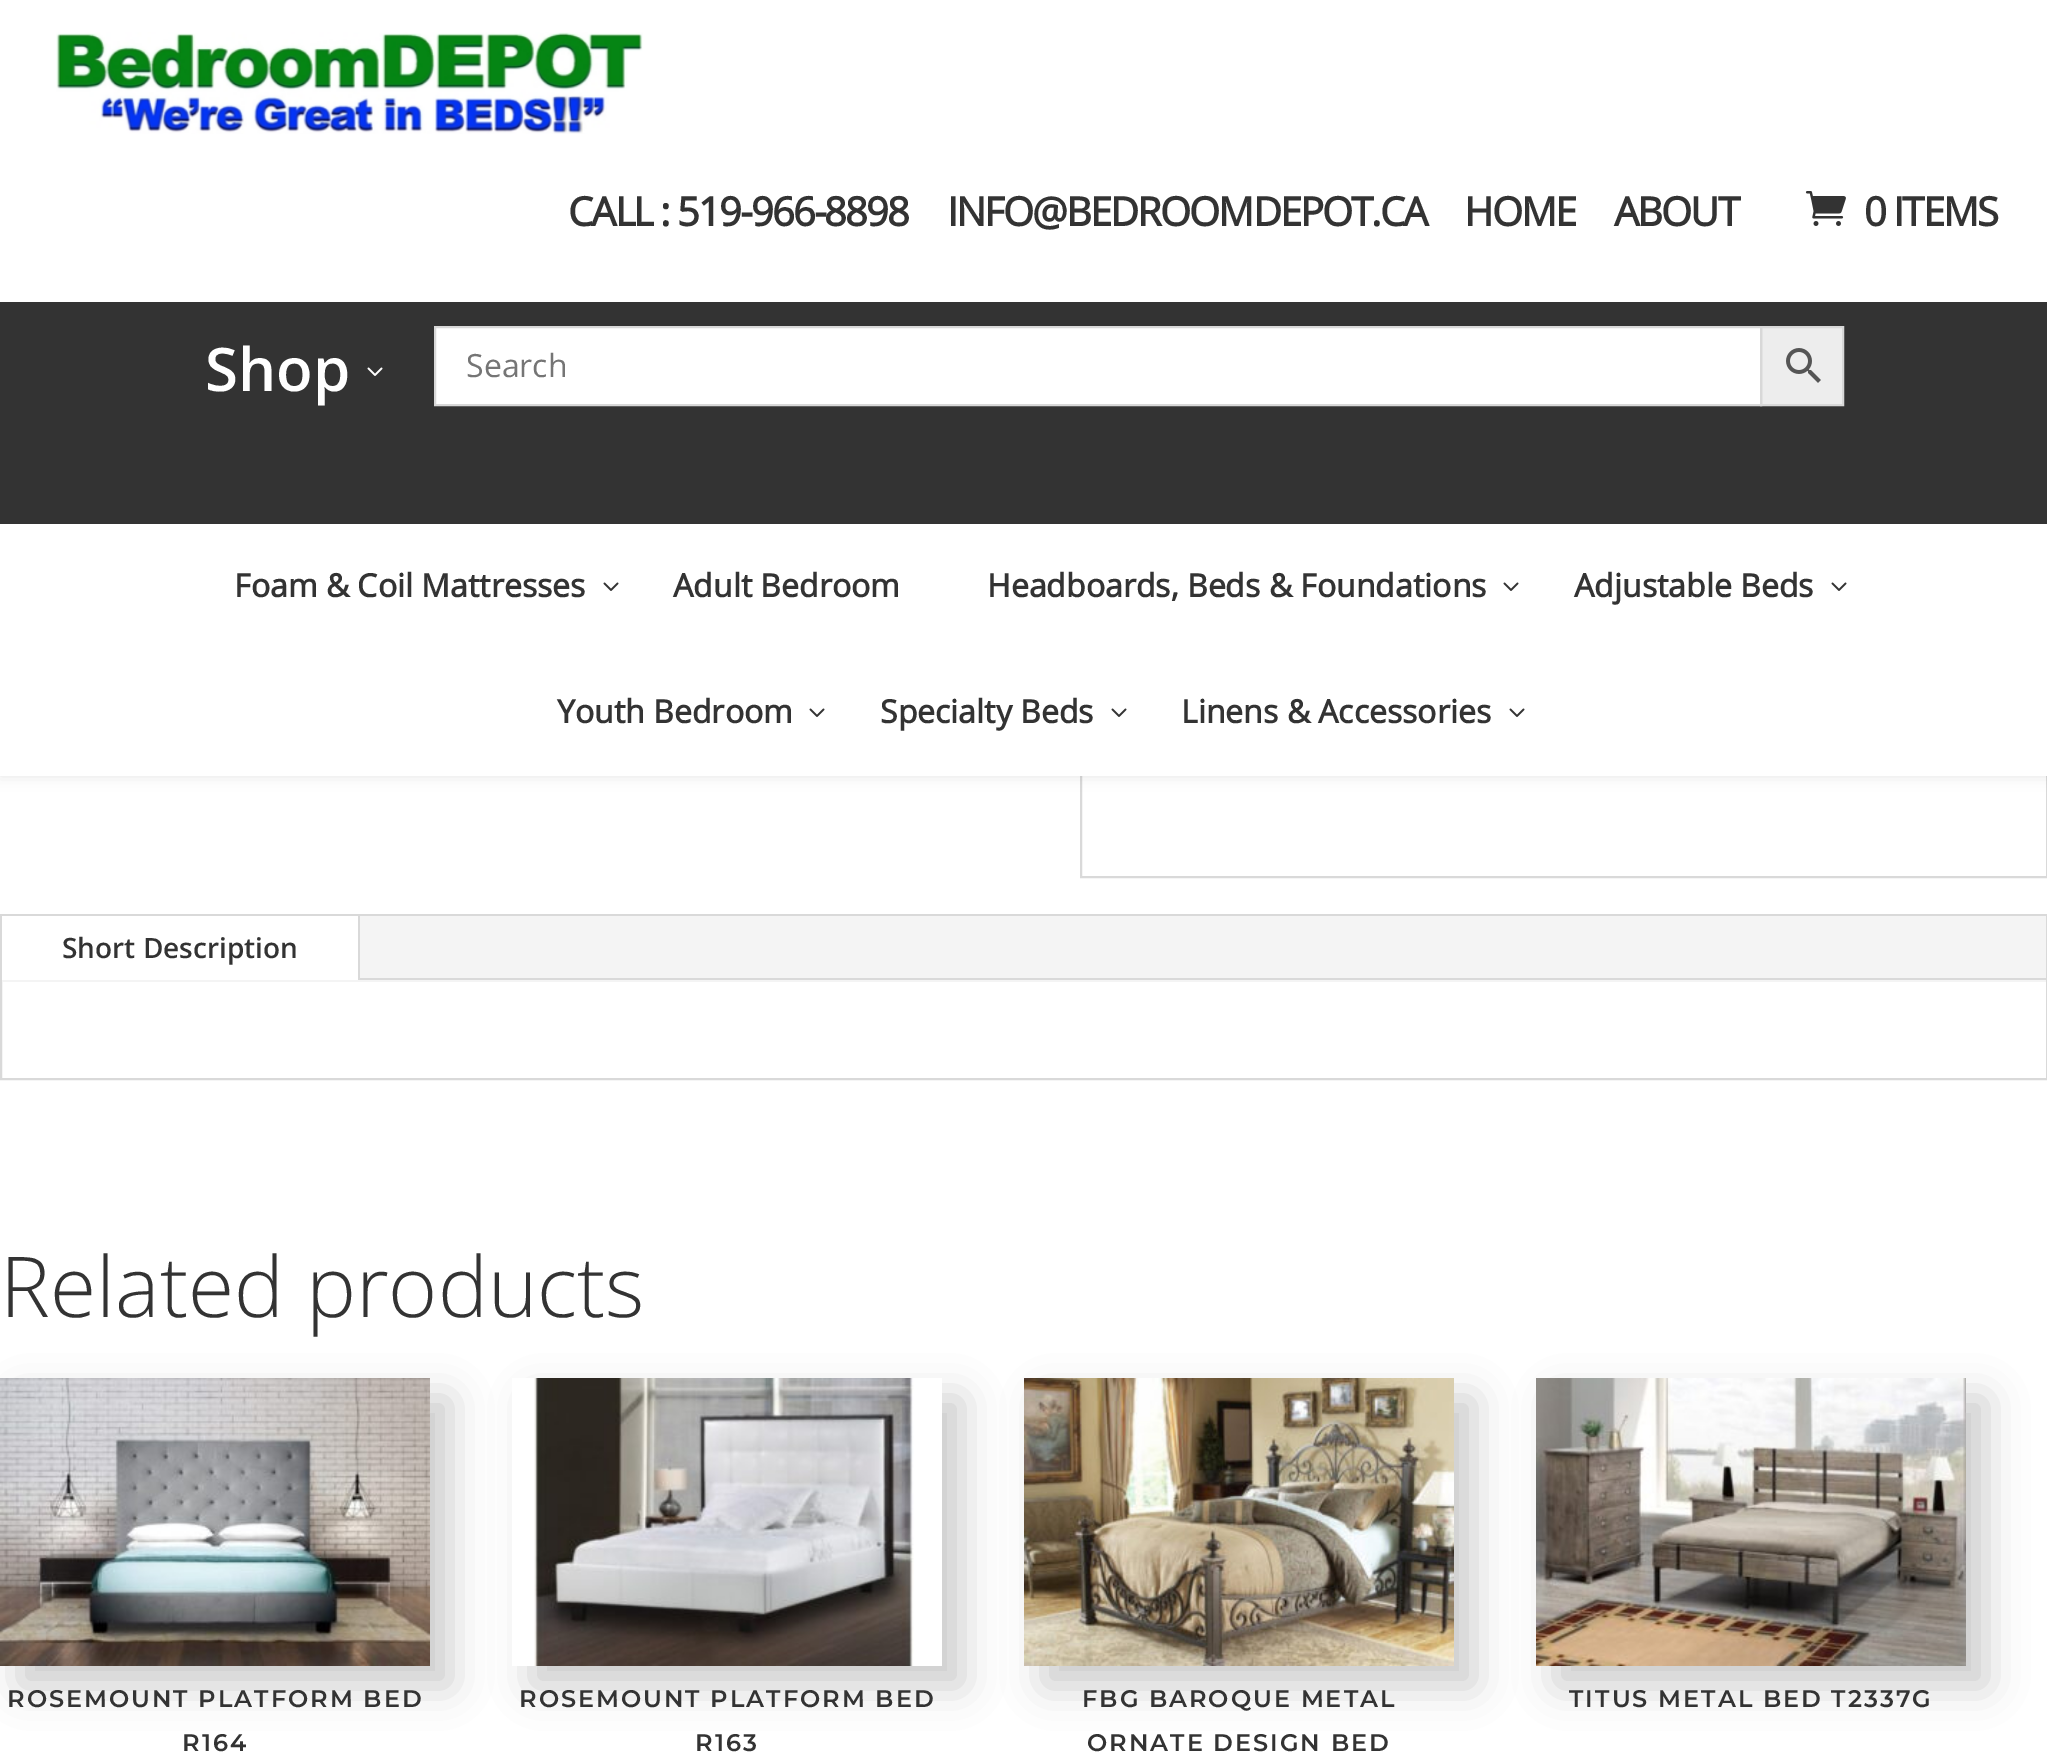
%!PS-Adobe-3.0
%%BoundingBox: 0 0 2047 1752
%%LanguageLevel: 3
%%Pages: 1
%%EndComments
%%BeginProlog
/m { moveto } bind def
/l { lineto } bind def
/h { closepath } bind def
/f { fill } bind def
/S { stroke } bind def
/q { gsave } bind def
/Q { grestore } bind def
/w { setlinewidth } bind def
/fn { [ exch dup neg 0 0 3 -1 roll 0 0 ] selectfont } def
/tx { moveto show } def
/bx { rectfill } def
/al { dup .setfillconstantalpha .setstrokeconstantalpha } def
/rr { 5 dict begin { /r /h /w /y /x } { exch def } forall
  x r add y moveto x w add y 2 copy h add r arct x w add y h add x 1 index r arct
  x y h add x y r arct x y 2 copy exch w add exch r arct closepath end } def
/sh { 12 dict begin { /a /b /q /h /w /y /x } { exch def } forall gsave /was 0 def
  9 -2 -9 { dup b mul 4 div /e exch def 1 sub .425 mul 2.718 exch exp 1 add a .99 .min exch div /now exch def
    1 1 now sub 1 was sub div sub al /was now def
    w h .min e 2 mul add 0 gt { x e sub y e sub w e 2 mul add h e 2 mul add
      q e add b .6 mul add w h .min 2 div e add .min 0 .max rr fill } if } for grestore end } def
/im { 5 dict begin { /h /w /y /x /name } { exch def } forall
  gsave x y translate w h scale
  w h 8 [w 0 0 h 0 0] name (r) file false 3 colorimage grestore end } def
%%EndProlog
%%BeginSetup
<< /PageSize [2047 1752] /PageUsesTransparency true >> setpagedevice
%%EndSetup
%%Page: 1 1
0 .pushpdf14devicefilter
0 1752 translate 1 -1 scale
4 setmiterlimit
1 setgray
0 0 2047 1752 bx
0.851 setgray
2 w
1081 147 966 730 rectstroke
0 setgray
0 302 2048 474 0 7 0.1 sh
1 setgray
0 146 2047 156 bx
(image0.raw) 56 32 587 102 im
/OpenSans-Bold 40 fn
0.2 setgray
568 226 m -2 0 (CALL : 519-966-8898) ashow
947 226 m -2 0 (INFO@BEDROOMDEPOT.CA) ashow
1464 226 m -2 0 (HOME) ashow
1614 226 m -2 0 (ABOUT) ashow
(image1.raw) 1805 191 41 35 im
1864 226 m -2 0 (0 ITEMS) ashow
0 302 2047 222 bx
/OpenSans-SemiBold 60 fn
1 setgray
(Shop) 205 391 tx
(image2.raw) 367 367 16 9 im
436 328 1324 76 bx
0.929 setgray
1761 327 m 1843 327 l 1843 405 l 1761 405 l h q f Q
0.847 setgray
S
435 327 1326 78 rectstroke
/OpenSans-Regular 32 fn
0.459 setgray
(Search) 466 377 tx
(image3.raw) 1786 348 35 35 im
1 setgray
0 524 2047 252 bx
/OpenSans-Bold 32 fn
0.2 setgray
(Foam & Coil Mattresses) 234 597 tx
(image4.raw) 603 582 16 9 im
(Adult Bedroom) 673 597 tx
(Headboards, Beds & Foundations) 987 597 tx
(image4.raw) 1503 582 16 9 im
(Adjustable Beds) 1574 597 tx
(image4.raw) 1831 582 16 9 im
(Youth Bedroom) 557 723 tx
(image4.raw) 809 708 16 9 im
(Specialty Beds) 880 723 tx
(image4.raw) 1111 708 16 9 im
(Linens & Accessories) 1181 723 tx
(image4.raw) 1509 708 16 9 im
0.851 setgray
1 915 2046 164 rectstroke
0.957 setgray
2 916 2044 66 bx
1 setgray
2 916 356 64 bx
0.851 setgray
358 916 2 64 bx
/OpenSans-SemiBold 28 fn
0.2 setgray
(Short Description) 62 958 tx
0.851 setgray
360 978 1686 2 bx
/OpenSans-Light 84 fn
0.2 setgray
(Related products) 0 1317 tx
0 setgray
20 1398 430 288 0 20 0.2 sh
(image5.raw) 0 1378 430 288 im
/Montserrat-Thin 24 fn
0.2 setgray
7 1707 m 2 0 (ROSEMOUNT PLATFORM BED) ashow
182 1751 m 2 0 (R164) ashow
q
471 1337 m 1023 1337 l 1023 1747 l 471 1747 l h 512 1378 m 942 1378 l 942 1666 l 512 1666 l h eoclip newpath
0 setgray
532 1398 430 288 0 20 0.2 sh
Q
(image6.raw) 534 1378 380 288 im
519 1707 m 2 0 (ROSEMOUNT PLATFORM BED) ashow
695 1751 m 2 0 (R163) ashow
0 setgray
1044 1398 430 288 0 20 0.2 sh
(image7.raw) 1024 1378 430 288 im
0.2 setgray
1082 1707 m 2 0 (FBG BAROQUE METAL) ashow
1087 1751 m 2 0 (ORNATE DESIGN BED) ashow
0 setgray
1556 1398 430 288 0 20 0.2 sh
(image8.raw) 1536 1378 430 288 im
0.2 setgray
1569 1707 m 2 0 (TITUS METAL BED T2337G) ashow
.poppdf14devicefilter showpage
%%EOF
